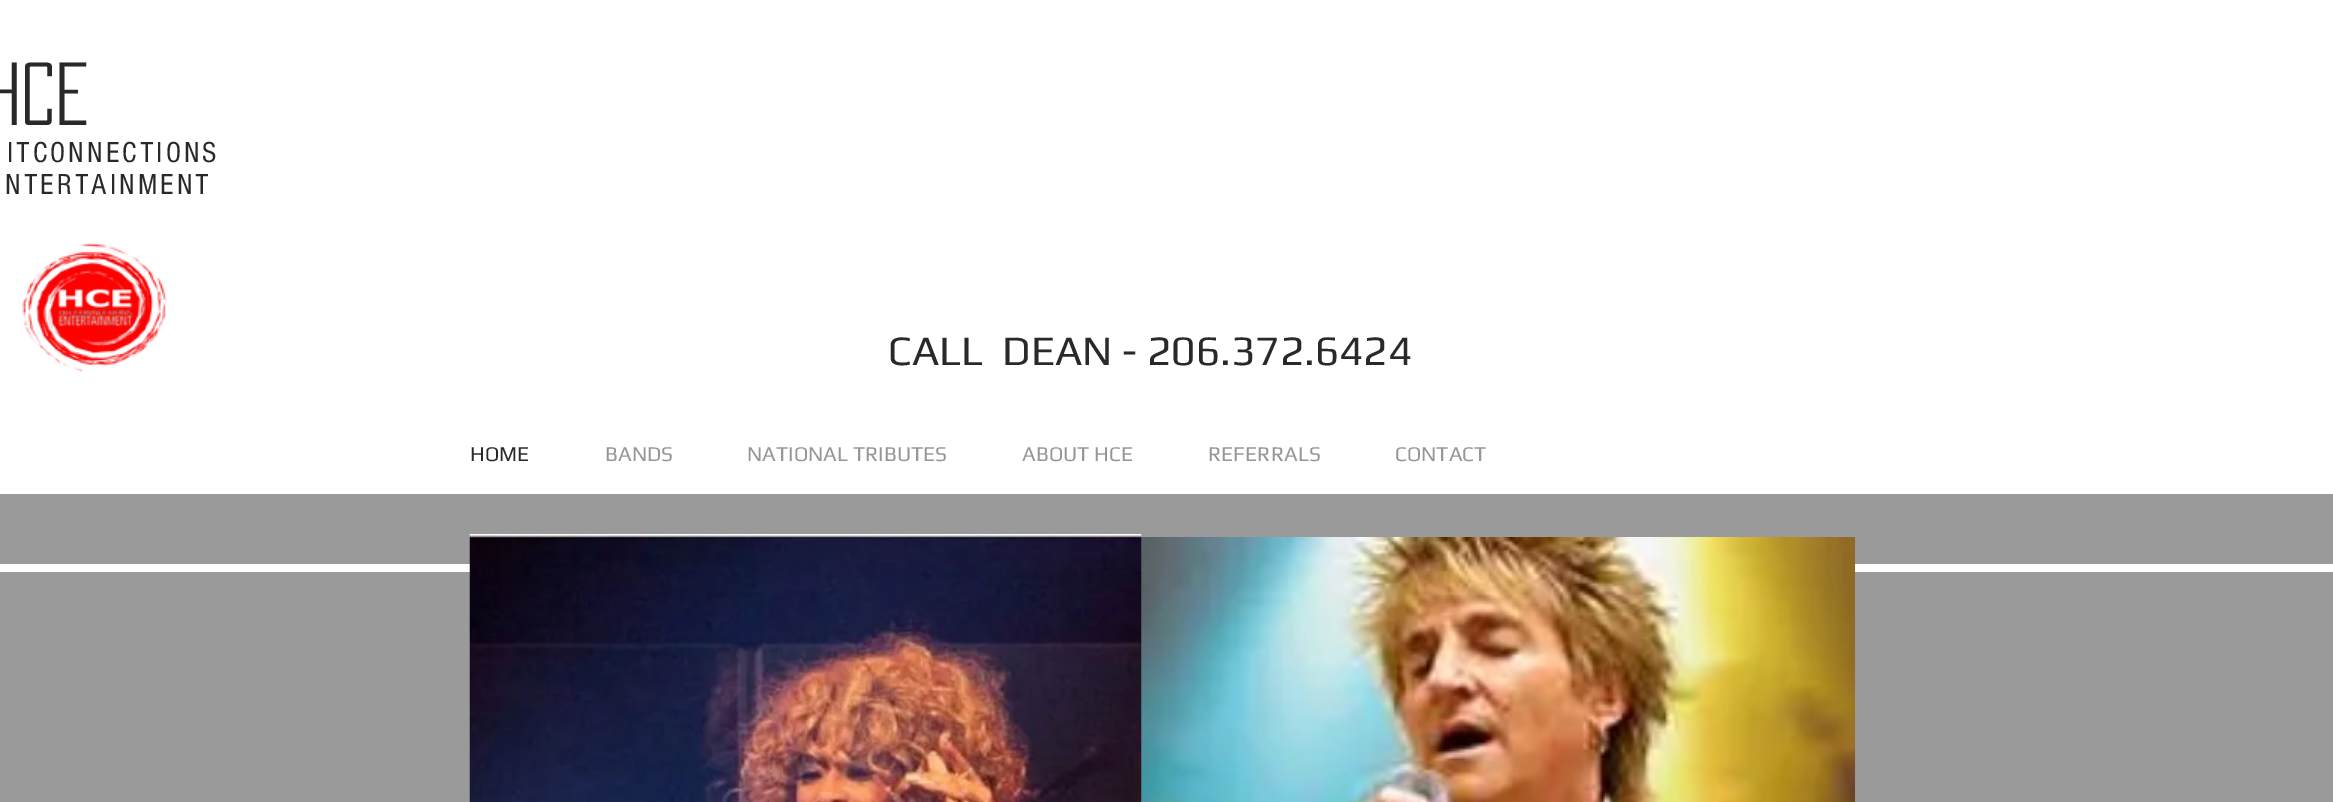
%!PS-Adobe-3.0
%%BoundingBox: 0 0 2333 802
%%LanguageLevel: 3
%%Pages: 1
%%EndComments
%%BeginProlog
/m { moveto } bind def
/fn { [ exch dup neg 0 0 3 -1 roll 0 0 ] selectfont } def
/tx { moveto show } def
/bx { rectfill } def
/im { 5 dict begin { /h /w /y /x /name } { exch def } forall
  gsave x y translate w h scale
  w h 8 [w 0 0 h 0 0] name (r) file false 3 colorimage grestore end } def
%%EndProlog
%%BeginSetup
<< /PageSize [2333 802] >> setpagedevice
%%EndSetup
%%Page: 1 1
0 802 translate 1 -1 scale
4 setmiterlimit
0.604 setgray
0 0 2333 802 bx
1 setgray
0 0 2333 494 bx
/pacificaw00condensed-Regular 78 fn
0.161 setgray
(HCE) -12 125 tx
/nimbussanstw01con-Regular 30 fn
7 162 m 3 0 (ITCONNECTIONS) ashow
5 194 m 3 0 (NTERTAINMENT) ashow
(image0.raw) 22 243 145 130 im
/Play-Regular 42 fn
(CALL  DEAN - 206.372.6424) 888 365 tx
/Play-Regular 21 fn
(HOME) 470 461 tx
0.592 0.584 0.584 setrgbcolor
(BANDS) 605 461 tx
(NATIONAL TRIBUTES) 747 461 tx
(ABOUT HCE) 1022 461 tx
(REFERRALS) 1208 461 tx
(CONTACT) 1395 461 tx
1 setgray
0 564 2333 8 bx
(image2.raw) 1141 537 715 265 im
(image1.raw) 469 534 673 268 im
showpage
%%EOF
